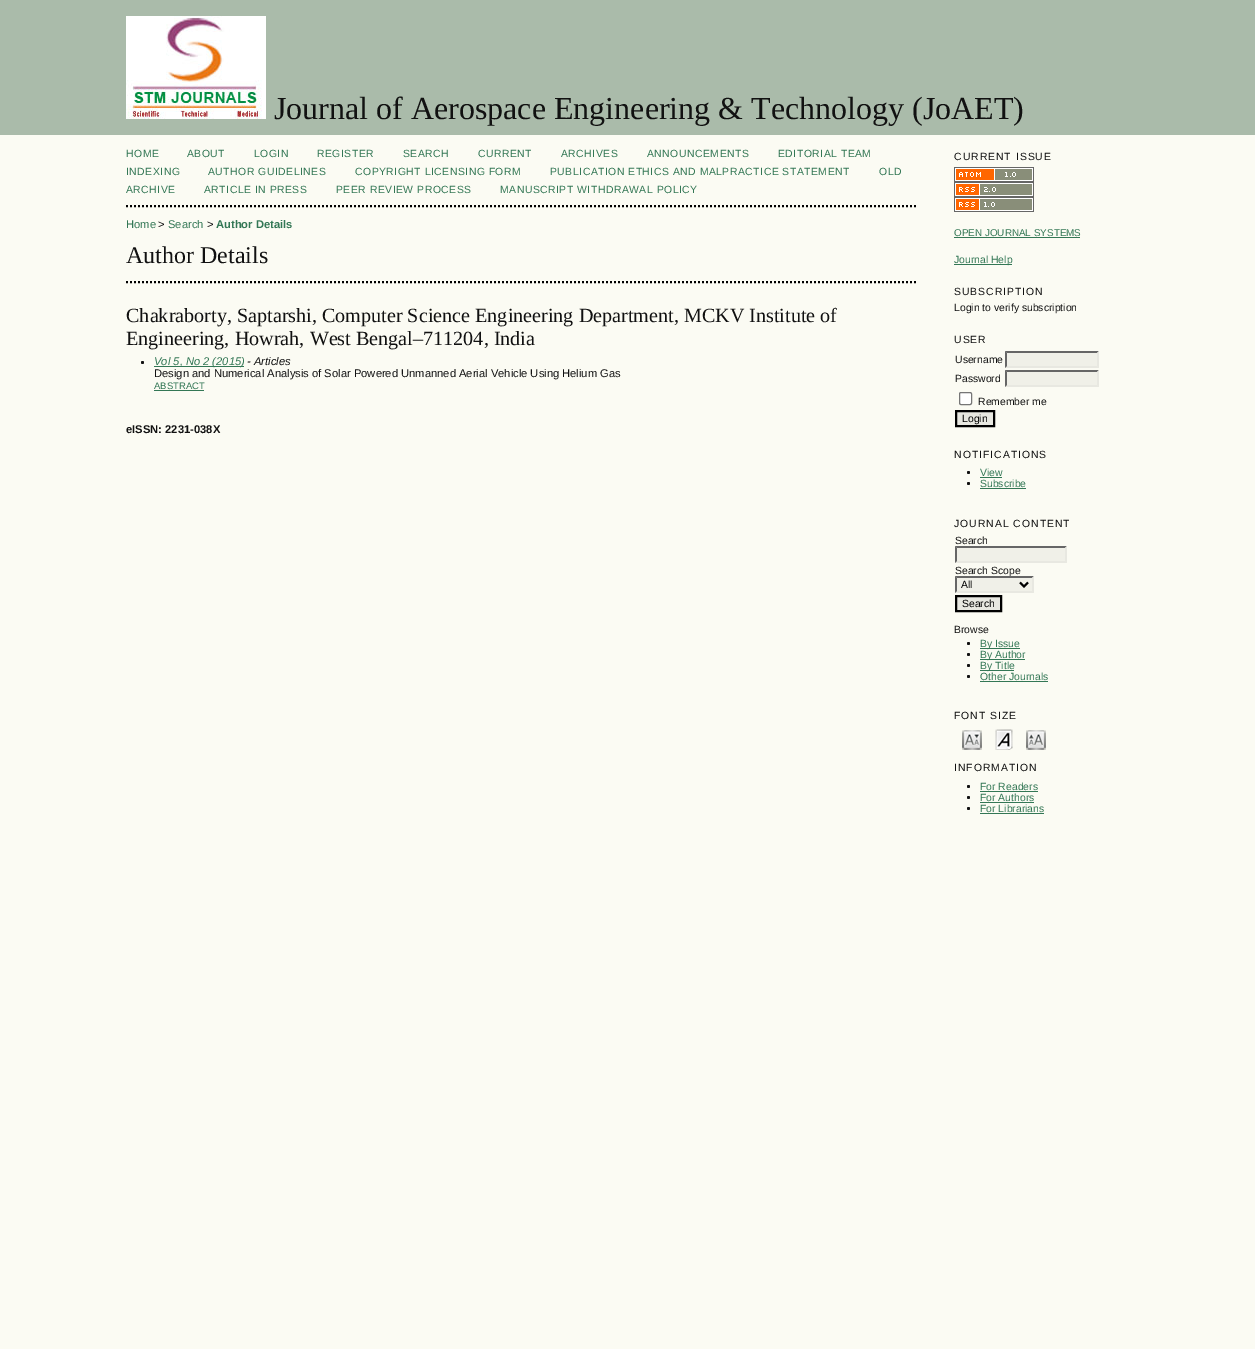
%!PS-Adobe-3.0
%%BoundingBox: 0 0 1255 1349
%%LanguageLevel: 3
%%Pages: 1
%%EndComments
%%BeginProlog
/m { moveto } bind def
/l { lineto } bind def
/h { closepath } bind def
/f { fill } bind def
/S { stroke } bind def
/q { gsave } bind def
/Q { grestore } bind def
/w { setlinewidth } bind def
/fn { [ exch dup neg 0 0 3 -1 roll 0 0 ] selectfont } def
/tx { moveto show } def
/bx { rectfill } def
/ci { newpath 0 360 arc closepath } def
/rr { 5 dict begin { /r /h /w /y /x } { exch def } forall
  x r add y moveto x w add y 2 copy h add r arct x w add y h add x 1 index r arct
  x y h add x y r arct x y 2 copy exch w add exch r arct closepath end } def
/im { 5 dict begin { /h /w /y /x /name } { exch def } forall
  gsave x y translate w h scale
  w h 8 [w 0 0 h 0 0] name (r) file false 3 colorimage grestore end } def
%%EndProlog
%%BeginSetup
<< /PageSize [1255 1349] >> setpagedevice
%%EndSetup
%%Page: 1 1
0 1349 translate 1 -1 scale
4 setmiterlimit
0.984 0.984 0.953 setrgbcolor
0 0 1255 1349 bx
0.667 0.733 0.667 setrgbcolor
0 0 1255 135 bx
(image0.raw) 126 16 140 103 im
/LiberationSerif-Regular 32 fn
0.067 setgray
(Journal of Aerospace Engineering & Technology \(JoAET\)) 274 119 tx
0 setgray
2 w
[2 2] 0 setdash
126 206 m 916 206 l S
/LiberationSans-Regular 10.4 fn
0.2 0.467 0.333 setrgbcolor
126 157 m 0.5 0 (HOME) ashow
187 157 m 0.5 0 (ABOUT) ashow
254 157 m 0.5 0 (LOGIN) ashow
317 157 m 0.5 0 (REGISTER) ashow
403 157 m 0.5 0 (SEARCH) ashow
478 157 m 0.5 0 (CURRENT) ashow
561 157 m 0.5 0 (ARCHIVES) ashow
647 157 m 0.5 0 (ANNOUNCEMENTS) ashow
778 157 m 0.5 0 (EDITORIAL TEAM) ashow
126 175 m 0.5 0 (INDEXING) ashow
208 175 m 0.5 0 (AUTHOR GUIDELINES) ashow
355 175 m 0.5 0 (COPYRIGHT LICENSING FORM) ashow
550 175 m 0.5 0 (PUBLICATION ETHICS AND MALPRACTICE STATEMENT) ashow
879 175 m 0.5 0 (OLD) ashow
126 193 m 0.5 0 (ARCHIVE) ashow
204 193 m 0.5 0 (ARTICLE IN PRESS) ashow
336 193 m 0.5 0 (PEER REVIEW PROCESS) ashow
500 193 m 0.5 0 (MANUSCRIPT WITHDRAWAL POLICY) ashow
/LiberationSans-Regular 11.2 fn
(Home) 126 228 tx
0.067 setgray
(>) 158 228 tx
0.2 0.467 0.333 setrgbcolor
(Search) 168 228 tx
0.067 setgray
(>) 207 228 tx
/LiberationSans-Bold 11.2 fn
0.2 0.467 0.333 setrgbcolor
(Author Details) 216 228 tx
/LiberationSerif-Regular 24 fn
0.067 setgray
(Author Details) 126 263 tx
0 setgray
126 282 m 916 282 l S
/LiberationSerif-Regular 20.15 fn
0.067 setgray
(Chakraborty, Saptarshi, Computer Science Engineering Department, MCKV Institute of) 126 322 tx
(Engineering, Howrah, West Bengal–711204, India) 126 345 tx
142.5 362.5 1.5 ci f
0.2 0.467 0.333 setrgbcolor
154 366 90 1 bx
/LiberationSans-Italic 11.2 fn
(Vol 5, No 2 \(2015\)) 154 365 tx
0.067 setgray
(- Articles) 247 365 tx
/LiberationSans-Regular 11.2 fn
(Design and Numerical Analysis of Solar Powered Unmanned Aerial Vehicle Using Helium Gas) 154 377 tx
/LiberationSans-Regular 9.5 fn
0.2 0.467 0.333 setrgbcolor
(ABSTRACT) 154 389 tx
154 390 50 1 bx
/LiberationSans-Bold 11.2 fn
0.067 setgray
(eISSN: 2231-038X) 126 433 tx
/LiberationSans-Regular 10.4 fn
954 160 m 1 0 (CURRENT ISSUE) ashow
(image1.raw) 954 167 80 15 im
(image2.raw) 954 182 80 15 im
(image3.raw) 954 197 80 15 im
/LiberationSans-Regular 9.9 fn
0.2 0.467 0.333 setrgbcolor
(OPEN JOURNAL SYSTEMS) 954 236 tx
954 237 126 1 bx
954 264 58 1 bx
/LiberationSans-Regular 10.4 fn
(Journal Help) 954 263 tx
0.067 setgray
954 295 m 1 0 (SUBSCRIPTION) ashow
(Login to verify subscription) 954 311 tx
954 343 m 1 0 (USER) ashow
(Username) 955 363 tx
0.941 0.941 0.91 setrgbcolor
1005 351 94 17 bx
0.4 setgray
1005 351 m 1099 351 l 1097 353 l 1007 353 l h f
0.91 0.91 0.882 setrgbcolor
1099 351 m 1099 368 l 1097 366 l 1097 353 l h f
1099 368 m 1005 368 l 1007 366 l 1097 366 l h f
0.4 setgray
1005 368 m 1005 351 l 1007 353 l 1007 366 l h f
0.067 setgray
(Password) 955 382 tx
0.941 0.941 0.91 setrgbcolor
1005 370 94 17 bx
0.4 setgray
1005 370 m 1099 370 l 1097 372 l 1007 372 l h f
0.91 0.91 0.882 setrgbcolor
1099 370 m 1099 387 l 1097 385 l 1097 372 l h f
1099 387 m 1005 387 l 1007 385 l 1097 385 l h f
0.4 setgray
1005 387 m 1005 370 l 1007 372 l 1007 385 l h f
1 setgray
959.5 392.5 12 12 1.5 rr q f Q
0.463 setgray
1 w
[] 0 setdash
S
0.067 setgray
(Remember me) 978 405 tx
0.91 0.91 0.882 setrgbcolor
956 411 m 994 411 l 994 426 l 956 426 l h q f Q
0 setgray
2 w
S
(Login) 962 422 tx
0.067 setgray
954 458 m 1 0 (NOTIFICATIONS) ashow
968.5 472.5 1.5 ci f
0.2 0.467 0.333 setrgbcolor
(View) 980 476 tx
980 477 22 1 bx
0.067 setgray
968.5 483.5 1.5 ci f
0.2 0.467 0.333 setrgbcolor
(Subscribe) 980 487 tx
980 488 46 1 bx
0.067 setgray
954 527 m 1 0 (JOURNAL CONTENT) ashow
(Search) 955 544 tx
0.941 0.941 0.91 setrgbcolor
955 546 112 17 bx
0.4 setgray
955 546 m 1067 546 l 1065 548 l 957 548 l h f
0.91 0.91 0.882 setrgbcolor
1067 546 m 1067 563 l 1065 561 l 1065 548 l h f
1067 563 m 955 563 l 957 561 l 1065 561 l h f
0.4 setgray
955 563 m 955 546 l 957 548 l 957 561 l h f
0.067 setgray
(Search Scope) 955 574 tx
0.941 0.941 0.91 setrgbcolor
955 576 79 17 bx
0.4 setgray
955 576 m 1034 576 l 1032 578 l 957 578 l h f
0.91 0.91 0.882 setrgbcolor
1034 576 m 1034 593 l 1032 591 l 1032 578 l h f
1034 593 m 955 593 l 957 591 l 1032 591 l h f
0.4 setgray
955 593 m 955 576 l 957 578 l 957 591 l h f
0 setgray
1020 582.5 m 1024 586.5 l 1028 582.5 l S
(All) 961 588 tx
0.91 0.91 0.882 setrgbcolor
956 596 m 1001 596 l 1001 611 l 956 611 l h q f Q
0 setgray
S
(Search) 962 607 tx
0.067 setgray
(Browse) 954 633 tx
968.5 643.5 1.5 ci f
0.2 0.467 0.333 setrgbcolor
980 648 40 1 bx
(By Issue) 980 647 tx
0.067 setgray
968.5 654.5 1.5 ci f
0.2 0.467 0.333 setrgbcolor
980 659 45 1 bx
(By Author) 980 658 tx
0.067 setgray
968.5 665.5 1.5 ci f
0.2 0.467 0.333 setrgbcolor
980 670 34 1 bx
(By Title) 980 669 tx
0.067 setgray
968.5 676.5 1.5 ci f
0.2 0.467 0.333 setrgbcolor
(Other Journals) 980 680 tx
980 681 68 1 bx
0.067 setgray
954 719 m 1 0 (FONT SIZE) ashow
(image4.raw) 962 730 20 20 im
(image5.raw) 995 729 18 21 im
(image6.raw) 1026 730 20 20 im
954 771 m 1 0 (INFORMATION) ashow
968.5 786.5 1.5 ci f
0.2 0.467 0.333 setrgbcolor
(For Readers) 980 790 tx
980 791 58 1 bx
0.067 setgray
968.5 797.5 1.5 ci f
0.2 0.467 0.333 setrgbcolor
(For Authors) 980 801 tx
980 802 54 1 bx
0.067 setgray
968.5 808.5 1.5 ci f
0.2 0.467 0.333 setrgbcolor
(For Librarians) 980 812 tx
980 813 64 1 bx
showpage
%%EOF
